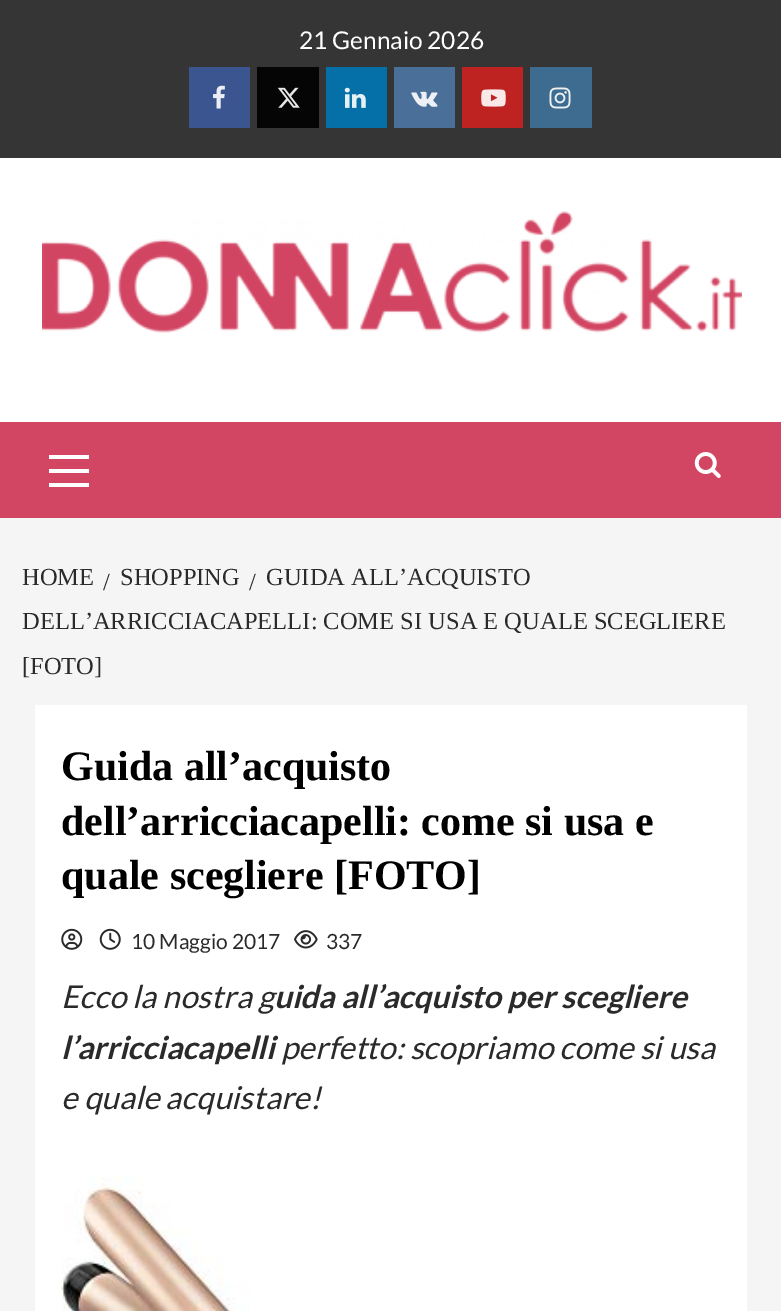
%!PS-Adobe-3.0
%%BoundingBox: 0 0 781 1311
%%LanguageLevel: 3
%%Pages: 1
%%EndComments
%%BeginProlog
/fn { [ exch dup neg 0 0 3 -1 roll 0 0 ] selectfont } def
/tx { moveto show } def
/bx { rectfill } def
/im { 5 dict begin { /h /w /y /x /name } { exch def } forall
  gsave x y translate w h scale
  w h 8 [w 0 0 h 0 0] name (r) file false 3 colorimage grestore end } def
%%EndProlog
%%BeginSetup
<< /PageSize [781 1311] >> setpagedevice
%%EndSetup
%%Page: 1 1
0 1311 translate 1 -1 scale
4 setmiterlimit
0.961 setgray
0 0 781 1311 bx
0.208 setgray
0 0 781 158 bx
/Lato-Regular 24.5 fn
1 setgray
(21 Gennaio 2026) 299 49 tx
0.227 0.333 0.561 setrgbcolor
189 67 61 61 bx
(image0.raw) 213 85 12 24 im
0.02 setgray
257 67 62 61 bx
(image1.raw) 277 87 23 21 im
0.02 0.439 0.659 setrgbcolor
326 67 61 61 bx
(image2.raw) 344 87 22 21 im
0.29 0.435 0.596 setrgbcolor
394 67 61 61 bx
(image3.raw) 411 91 27 16 im
0.745 0.133 0.129 setrgbcolor
462 67 61 61 bx
(image4.raw) 481 89 25 18 im
0.243 0.424 0.569 setrgbcolor
530 67 62 61 bx
(image5.raw) 549 87 22 22 im
1 setgray
0 158 781 264 bx
(image6.raw) 42 211 700 122 im
0.824 0.271 0.388 setrgbcolor
0 422 781 96 bx
1 setgray
49 469 40 4 bx
49 455 40 4 bx
49 483 40 4 bx
(image7.raw) 694 452 27 26 im
/LiberationSerif-Regular 24.5 fn
0.165 setgray
(HOME) 22 585 tx
(/) 249 590 tx
(GUIDA ALL’ACQUISTO) 266 585 tx
(DELL’ARRICCIACAPELLI: COME SI USA E QUALE SCEGLIERE) 22 629 tx
([FOTO]) 22 674 tx
(/) 103 590 tx
(SHOPPING) 120 585 tx
1 setgray
35 705 712 606 bx
/LiberationSerif-Bold 42 fn
0 setgray
(Guida all’acquisto) 61 780 tx
(dell’arricciacapelli: come si usa e) 61 835 tx
(quale scegliere [FOTO]) 61 889 tx
(image8.raw) 61 928 22 22 im
(image9.raw) 99 928 22 22 im
/Lato-Regular 21 fn
0.165 setgray
(10 Maggio 2017) 131 949 tx
(image10.raw) 294 930 24 19 im
(337) 326 949 tx
/Lato-Italic 31.5 fn
(Ecco la nostra g) 61 1008 tx
/Lato-BoldItalic 31.5 fn
(uida all’acquisto per scegliere) 274 1008 tx
(l’arricciacapelli) 61 1059 tx
/Lato-Italic 31.5 fn
(perfetto: scopriamo come si usa) 281 1059 tx
(e quale acquistare!) 61 1109 tx
(image11.raw) 61 1176 189 135 im
showpage
%%EOF
